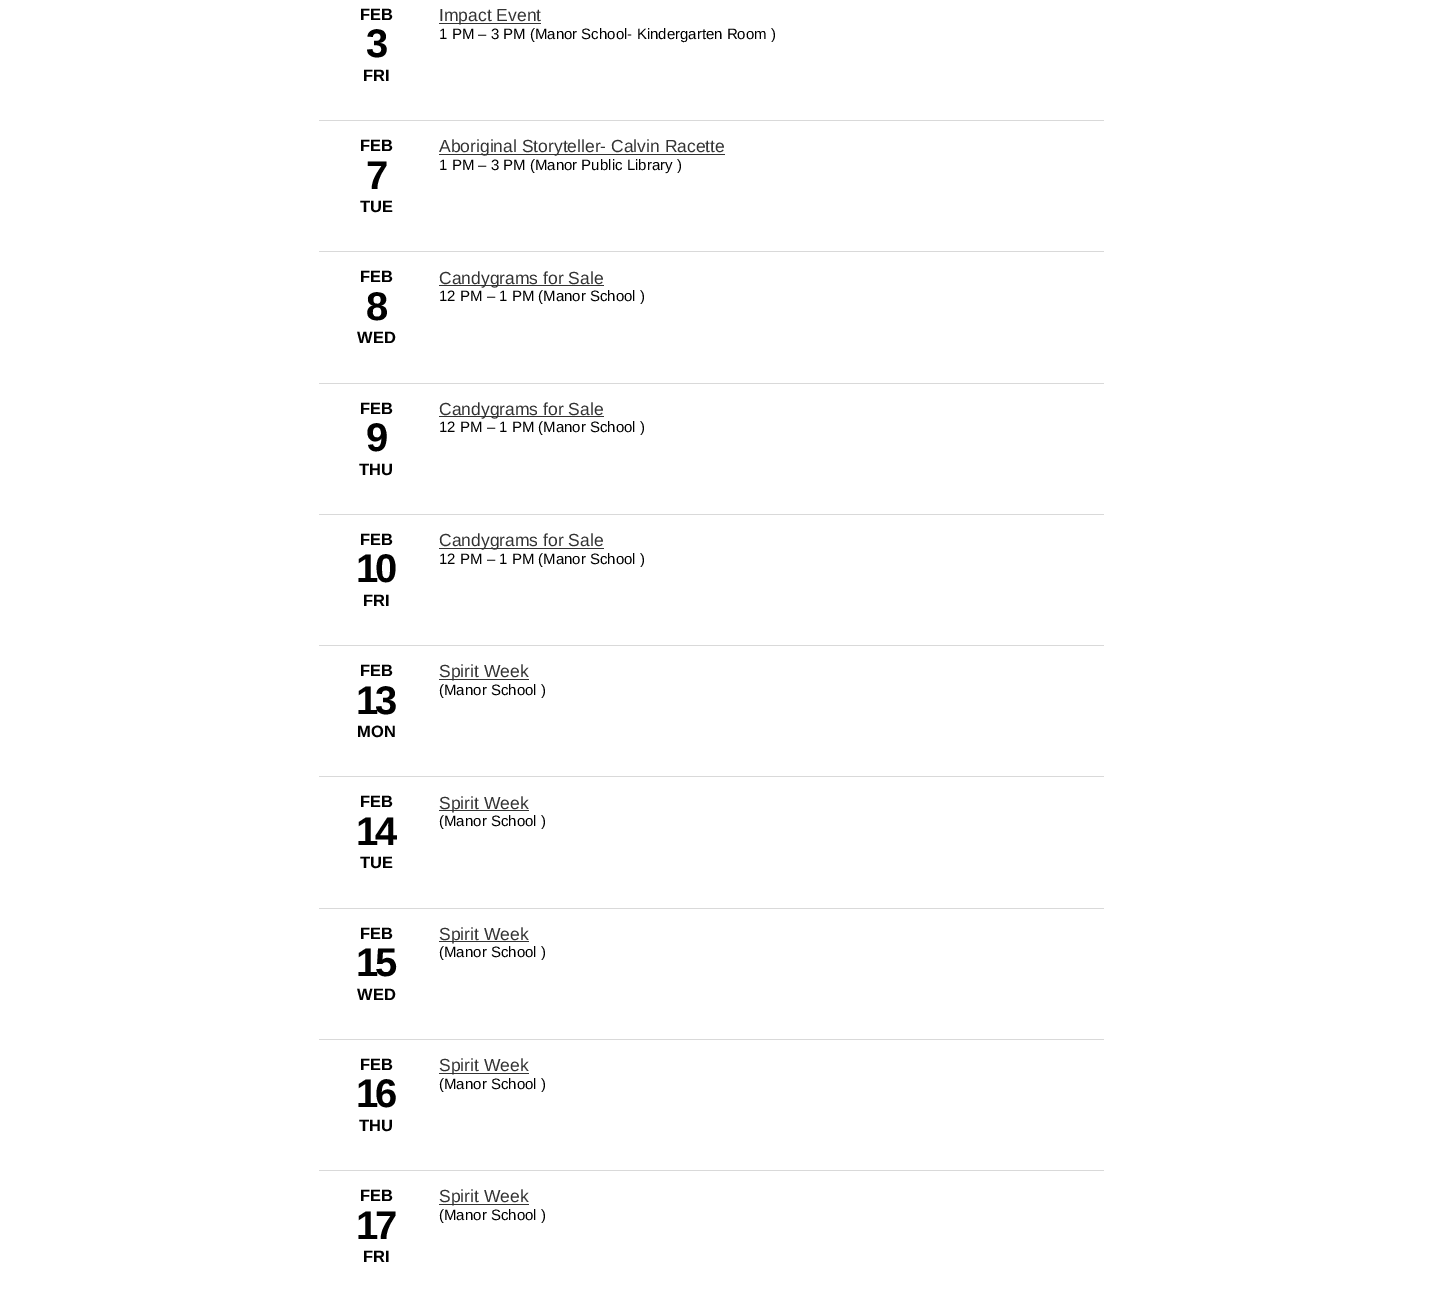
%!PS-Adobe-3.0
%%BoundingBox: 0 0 1436 1298
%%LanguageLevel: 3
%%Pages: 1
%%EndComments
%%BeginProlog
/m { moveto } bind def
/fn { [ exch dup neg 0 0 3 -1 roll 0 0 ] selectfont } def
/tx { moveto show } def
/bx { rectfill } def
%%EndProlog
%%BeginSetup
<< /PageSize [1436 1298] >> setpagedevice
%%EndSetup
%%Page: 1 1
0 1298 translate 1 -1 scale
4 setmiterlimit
1 setgray
0 0 1436 1298 bx
/LiberationSans-Bold 16.5 fn
0 setgray
(FEB) 360 20 tx
/LiberationSans-Bold 40 fn
366 57 m -3 0 (3) ashow
/LiberationSans-Bold 16.5 fn
(FRI) 363 81 tx
0.2 setgray
439 23 102 1 bx
/LiberationSans-Regular 17.5 fn
(Impact Event) 439 21 tx
/LiberationSans-Regular 15 fn
0 setgray
(1 PM – 3 PM \(Manor School- Kindergarten Room \)) 439 39 tx
0.851 setgray
319 120 785 1 bx
/LiberationSans-Bold 16.5 fn
0 setgray
(FEB) 360 151 tx
/LiberationSans-Bold 40 fn
366 189 m -3 0 (7) ashow
/LiberationSans-Bold 16.5 fn
(TUE) 360 212 tx
0.2 setgray
439 154 286 1 bx
/LiberationSans-Regular 17.5 fn
(Aboriginal Storyteller- Calvin Racette) 439 152 tx
/LiberationSans-Regular 15 fn
0 setgray
(1 PM – 3 PM \(Manor Public Library \)) 439 170 tx
0.851 setgray
319 251 785 1 bx
/LiberationSans-Bold 16.5 fn
0 setgray
(FEB) 360 282 tx
/LiberationSans-Bold 40 fn
366 320 m -3 0 (8) ashow
/LiberationSans-Bold 16.5 fn
(WED) 357 343 tx
0.2 setgray
439 285 165 1 bx
/LiberationSans-Regular 17.5 fn
(Candygrams for Sale) 439 284 tx
/LiberationSans-Regular 15 fn
0 setgray
(12 PM – 1 PM \(Manor School \)) 439 301 tx
0.851 setgray
319 383 785 1 bx
/LiberationSans-Bold 16.5 fn
0 setgray
(FEB) 360 414 tx
/LiberationSans-Bold 40 fn
366 451 m -3 0 (9) ashow
/LiberationSans-Bold 16.5 fn
(THU) 359 475 tx
0.2 setgray
439 416 165 1 bx
/LiberationSans-Regular 17.5 fn
(Candygrams for Sale) 439 415 tx
/LiberationSans-Regular 15 fn
0 setgray
(12 PM – 1 PM \(Manor School \)) 439 432 tx
0.851 setgray
319 514 785 1 bx
/LiberationSans-Bold 16.5 fn
0 setgray
(FEB) 360 545 tx
/LiberationSans-Bold 40 fn
356 582 m -3 0 (10) ashow
/LiberationSans-Bold 16.5 fn
(FRI) 363 606 tx
0.2 setgray
439 548 165 1 bx
/LiberationSans-Regular 17.5 fn
(Candygrams for Sale) 439 546 tx
/LiberationSans-Regular 15 fn
0 setgray
(12 PM – 1 PM \(Manor School \)) 439 564 tx
0.851 setgray
319 645 785 1 bx
/LiberationSans-Bold 16.5 fn
0 setgray
(FEB) 360 676 tx
/LiberationSans-Bold 40 fn
356 714 m -3 0 (13) ashow
/LiberationSans-Bold 16.5 fn
(MON) 357 737 tx
0.2 setgray
439 679 90 1 bx
/LiberationSans-Regular 17.5 fn
(Spirit Week) 439 677 tx
/LiberationSans-Regular 15 fn
0 setgray
(\(Manor School \)) 439 695 tx
0.851 setgray
319 776 785 1 bx
/LiberationSans-Bold 16.5 fn
0 setgray
(FEB) 360 807 tx
/LiberationSans-Bold 40 fn
356 845 m -3 0 (14) ashow
/LiberationSans-Bold 16.5 fn
(TUE) 360 868 tx
0.2 setgray
439 810 90 1 bx
/LiberationSans-Regular 17.5 fn
(Spirit Week) 439 809 tx
/LiberationSans-Regular 15 fn
0 setgray
(\(Manor School \)) 439 826 tx
0.851 setgray
319 908 785 1 bx
/LiberationSans-Bold 16.5 fn
0 setgray
(FEB) 360 939 tx
/LiberationSans-Bold 40 fn
356 976 m -3 0 (15) ashow
/LiberationSans-Bold 16.5 fn
(WED) 357 1000 tx
0.2 setgray
439 941 90 1 bx
/LiberationSans-Regular 17.5 fn
(Spirit Week) 439 940 tx
/LiberationSans-Regular 15 fn
0 setgray
(\(Manor School \)) 439 957 tx
0.851 setgray
319 1039 785 1 bx
/LiberationSans-Bold 16.5 fn
0 setgray
(FEB) 360 1070 tx
/LiberationSans-Bold 40 fn
356 1107 m -3 0 (16) ashow
/LiberationSans-Bold 16.5 fn
(THU) 359 1131 tx
0.2 setgray
439 1073 90 1 bx
/LiberationSans-Regular 17.5 fn
(Spirit Week) 439 1071 tx
/LiberationSans-Regular 15 fn
0 setgray
(\(Manor School \)) 439 1089 tx
0.851 setgray
319 1170 785 1 bx
/LiberationSans-Bold 16.5 fn
0 setgray
(FEB) 360 1201 tx
/LiberationSans-Bold 40 fn
356 1239 m -3 0 (17) ashow
/LiberationSans-Bold 16.5 fn
(FRI) 363 1262 tx
0.2 setgray
439 1204 90 1 bx
/LiberationSans-Regular 17.5 fn
(Spirit Week) 439 1202 tx
/LiberationSans-Regular 15 fn
0 setgray
(\(Manor School \)) 439 1220 tx
showpage
%%EOF
